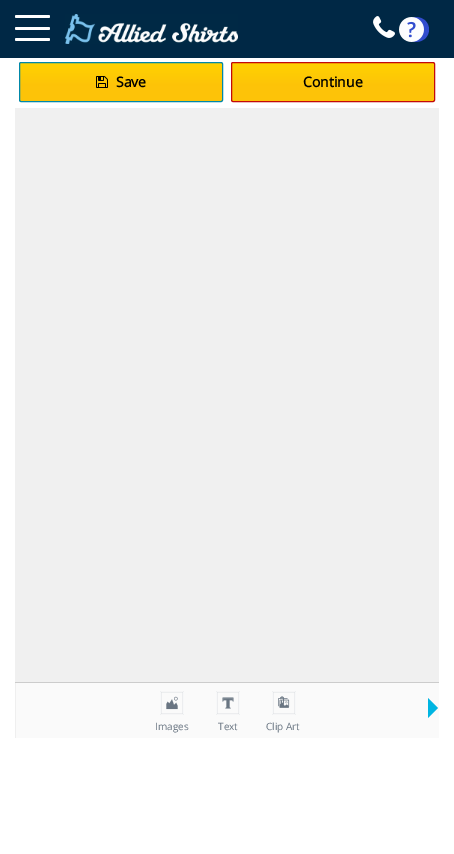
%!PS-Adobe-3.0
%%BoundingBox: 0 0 454 854
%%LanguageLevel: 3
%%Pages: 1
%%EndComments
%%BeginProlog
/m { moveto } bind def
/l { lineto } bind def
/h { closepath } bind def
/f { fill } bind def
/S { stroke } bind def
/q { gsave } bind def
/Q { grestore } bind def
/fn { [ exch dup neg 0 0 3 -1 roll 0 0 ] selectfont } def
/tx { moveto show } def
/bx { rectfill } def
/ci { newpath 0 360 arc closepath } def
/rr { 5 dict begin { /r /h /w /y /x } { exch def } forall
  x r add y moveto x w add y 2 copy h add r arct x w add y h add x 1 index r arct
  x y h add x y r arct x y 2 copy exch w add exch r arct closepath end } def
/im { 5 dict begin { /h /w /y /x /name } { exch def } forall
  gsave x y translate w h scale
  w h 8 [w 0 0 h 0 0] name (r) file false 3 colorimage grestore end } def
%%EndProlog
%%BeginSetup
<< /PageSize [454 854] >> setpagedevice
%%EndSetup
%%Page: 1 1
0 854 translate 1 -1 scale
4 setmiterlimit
1 setgray
0 0 454 854 bx
0 0.157 0.271 setrgbcolor
0 0 454 58 bx
1 setgray
15 15 35 3 1.5 rr f
15 27 35 3 1.5 rr f
15 38 35 3 1.5 rr f
(image0.raw) 65 14 173 30 im
(image1.raw) 373 16 22 22 im
0.196 0.302 0.808 setrgbcolor
416.5 29.5 12.5 ci f
(image2.raw) 399 17 25 25 im
q
19 62 204 40 2 rr clip newpath
q 19 63 m 223 63 l 223 101 l 19 101 l h clip newpath
<< /ShadingType 2 /ColorSpace /DeviceRGB /Coords [121 63 121 101] /Extend [true true] /Function << /FunctionType 3 /Domain [0 1] /Functions [<< /FunctionType 2 /Domain [0 1] /C0 [1 0.824 0] /C1 [0.992 0.765 0.031] /N 1 >> << /FunctionType 2 /Domain [0 1] /C0 [0.992 0.765 0.031] /C1 [0.992 0.765 0.031] /N 1 >>] /Bounds [0.6] /Encode [0 1 0 1] >> >> shfill Q
Q
0 0.533 0.663 setrgbcolor
19.5 62.5 203 39 1.5 rr S
(image3.raw) 96 76 12 12 im
/OpenSans-Bold 14 fn
0 setgray
(Save) 116 87 tx
q
231 62 204 40 2 rr clip newpath
q 231 63 m 435 63 l 435 101 l 231 101 l h clip newpath
<< /ShadingType 2 /ColorSpace /DeviceRGB /Coords [333 63 333 101] /Extend [true true] /Function << /FunctionType 3 /Domain [0 1] /Functions [<< /FunctionType 2 /Domain [0 1] /C0 [1 0.824 0] /C1 [0.992 0.765 0.031] /N 1 >> << /FunctionType 2 /Domain [0 1] /C0 [0.992 0.765 0.031] /C1 [0.992 0.765 0.031] /N 1 >>] /Bounds [0.6] /Encode [0 1 0 1] >> >> shfill Q
Q
0.765 0.035 0.039 setrgbcolor
231.5 62.5 203 39 1.5 rr S
0 setgray
(Continue) 303 87 tx
0.941 setgray
15 108 424 574 bx
0.98 setgray
16 683 423 55 bx
0.8 setgray
15 682 424 1 bx
0 0.71 0.886 setrgbcolor
428 718 m 428 698 l 438 708 l h f
0.937 setgray
15 683 1 55 bx
(image4.raw) 160 691 24 24 im
/OpenSans-Regular 10 fn
0.412 0.459 0.51 setrgbcolor
(Images) 155 730 tx
(image5.raw) 216 691 24 24 im
(Text) 218 730 tx
(image6.raw) 272 691 24 24 im
(Clip Art) 266 730 tx
showpage
%%EOF
